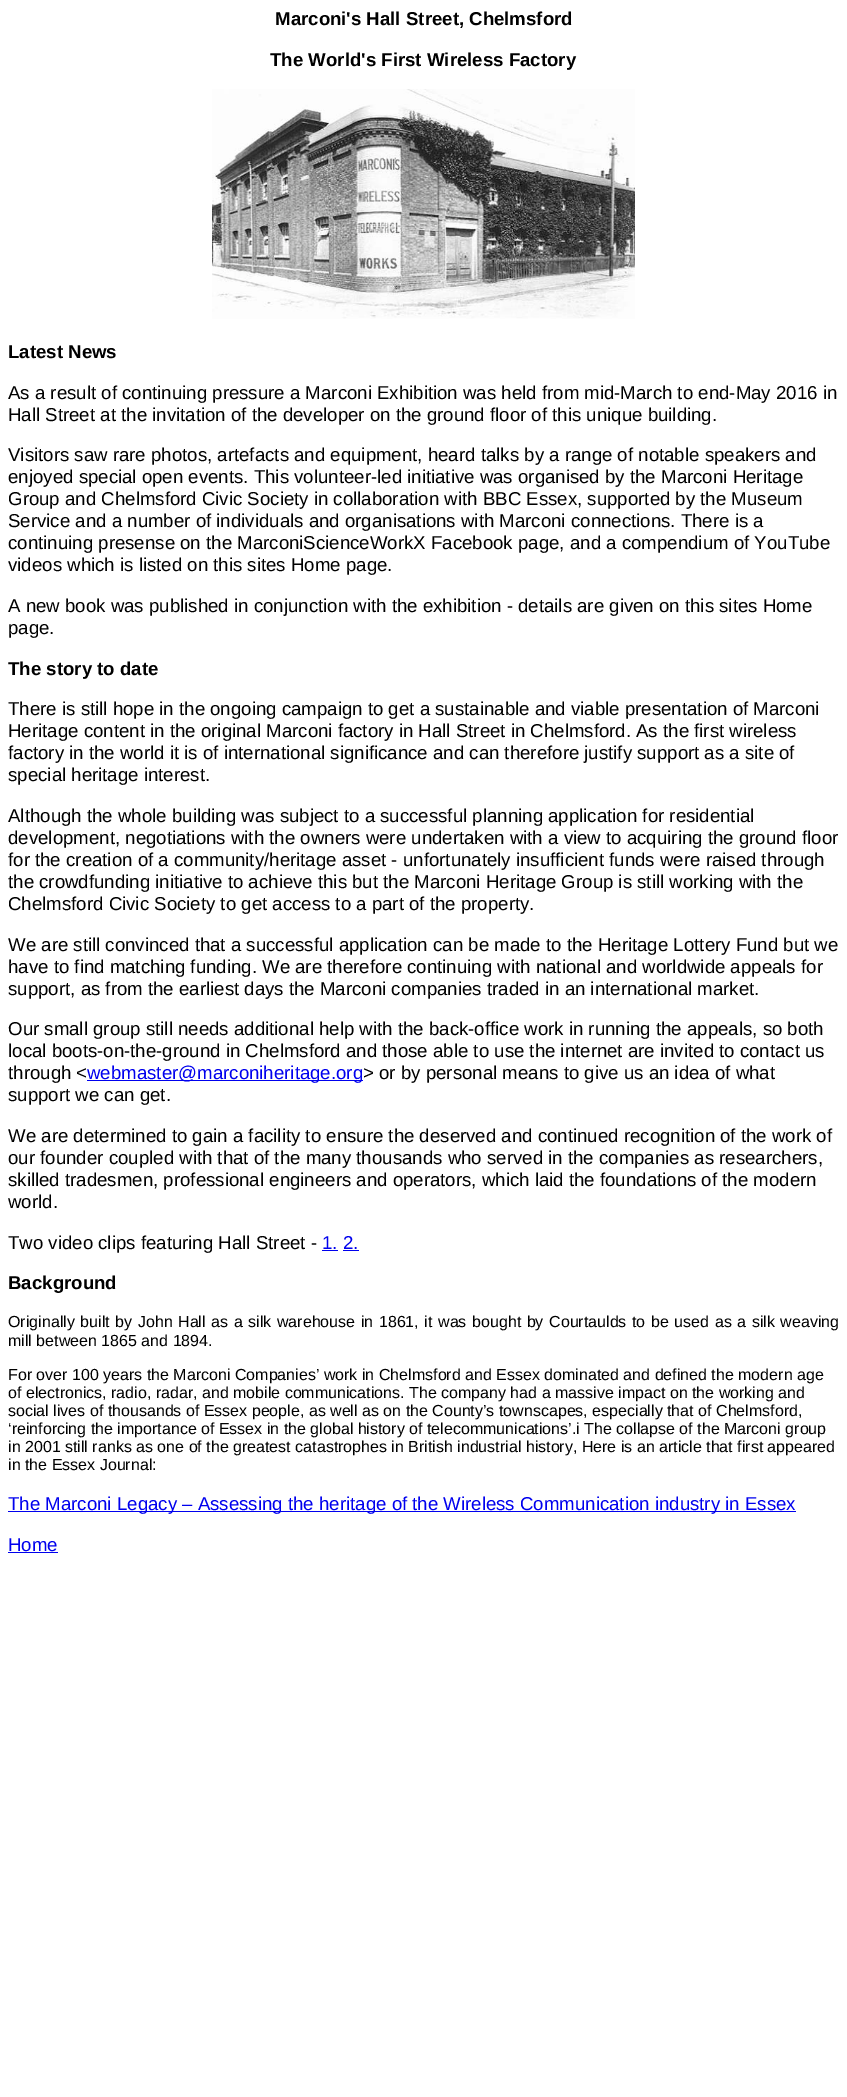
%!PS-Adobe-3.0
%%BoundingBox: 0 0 847 2097
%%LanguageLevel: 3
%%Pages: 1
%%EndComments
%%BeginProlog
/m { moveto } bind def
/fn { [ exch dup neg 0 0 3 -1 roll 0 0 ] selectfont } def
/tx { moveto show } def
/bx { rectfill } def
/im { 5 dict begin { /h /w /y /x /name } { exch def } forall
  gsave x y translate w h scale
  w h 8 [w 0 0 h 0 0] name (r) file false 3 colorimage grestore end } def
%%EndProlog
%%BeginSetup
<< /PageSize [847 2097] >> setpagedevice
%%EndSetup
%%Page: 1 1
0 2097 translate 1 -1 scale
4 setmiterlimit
1 setgray
0 0 847 2097 bx
/LiberationSans-Bold 18.65 fn
0 setgray
(Marconi's Hall Street, Chelmsford) 275 25 tx
(The World's First Wireless Factory) 270 66 tx
(image0.raw) 212 89 423 230 im
(Latest News) 8 358 tx
/LiberationSans-Regular 18.65 fn
(As a result of continuing pressure a Marconi Exhibition was held from mid-March to end-May 2016 in) 8 399 tx
(Hall Street at the invitation of the developer on the ground floor of this unique building.) 8 421 tx
(Visitors saw rare photos, artefacts and equipment, heard talks by a range of notable speakers and) 8 461 tx
(enjoyed special open events. This volunteer-led initiative was organised by the Marconi Heritage) 8 483 tx
(Group and Chelmsford Civic Society in collaboration with BBC Essex, supported by the Museum) 8 505 tx
(Service and a number of individuals and organisations with Marconi connections. There is a) 8 527 tx
(continuing presense on the MarconiScienceWorkX Facebook page, and a compendium of YouTube) 8 549 tx
(videos which is listed on this sites Home page.) 8 571 tx
(A new book was published in conjunction with the exhibition - details are given on this sites Home) 8 612 tx
(page.) 8 634 tx
/LiberationSans-Bold 18.65 fn
(The story to date) 8 675 tx
/LiberationSans-Regular 18.65 fn
(There is still hope in the ongoing campaign to get a sustainable and viable presentation of Marconi) 8 715 tx
(Heritage content in the original Marconi factory in Hall Street in Chelmsford. As the first wireless) 8 737 tx
(factory in the world it is of international significance and can therefore justify support as a site of) 8 759 tx
(special heritage interest.) 8 781 tx
(Although the whole building was subject to a successful planning application for residential) 8 822 tx
(development, negotiations with the owners were undertaken with a view to acquiring the ground floor) 8 844 tx
(for the creation of a community/heritage asset - unfortunately insufficient funds were raised through) 8 866 tx
(the crowdfunding initiative to achieve this but the Marconi Heritage Group is still working with the) 8 888 tx
(Chelmsford Civic Society to get access to a part of the property.) 8 910 tx
(We are still convinced that a successful application can be made to the Heritage Lottery Fund but we) 8 951 tx
(have to find matching funding. We are therefore continuing with national and worldwide appeals for) 8 973 tx
(support, as from the earliest days the Marconi companies traded in an international market.) 8 995 tx
(Our small group still needs additional help with the back-office work in running the appeals, so both) 8 1035 tx
(local boots-on-the-ground in Chelmsford and those able to use the internet are invited to contact us) 8 1057 tx
(through <) 8 1079 tx
0 0 0.933 setrgbcolor
87 1080 276 1 bx
(webmaster@marconiheritage.org) 87 1079 tx
0 setgray
(> or by personal means to give us an idea of what) 363 1079 tx
(support we can get.) 8 1101 tx
(We are determined to gain a facility to ensure the deserved and continued recognition of the work of) 8 1142 tx
(our founder coupled with that of the many thousands who served in the companies as researchers,) 8 1164 tx
(skilled tradesmen, professional engineers and operators, which laid the foundations of the modern) 8 1186 tx
(world.) 8 1208 tx
(Two video clips featuring Hall Street -) 8 1249 tx
0 0 0.933 setrgbcolor
(1. 2.) 322 1249 tx
322 1250 16 1 bx
343 1250 16 1 bx
/LiberationSans-Bold 18.65 fn
0 setgray
(Background) 8 1289 tx
/LiberationSans-Regular 16 fn
8 1327 m 1.15 0 32 (Originally built by John Hall as a silk warehouse in 1861, it was bought by Courtaulds to be used as a silk weaving) widthshow
(mill between 1865 and 1894.) 8 1346 tx
(For over 100 years the Marconi Companies’ work in Chelmsford and Essex dominated and defined the modern age) 8 1380 tx
(of electronics, radio, radar, and mobile communications. The company had a massive impact on the working and) 8 1398 tx
(social lives of thousands of Essex people, as well as on the County’s townscapes, especially that of Chelmsford,) 8 1416 tx
(‘reinforcing the importance of Essex in the global history of telecommunications’.i The collapse of the Marconi group) 8 1434 tx
(in 2001 still ranks as one of the greatest catastrophes in British industrial history, Here is an article that first appeared) 8 1452 tx
(in the Essex Journal:) 8 1470 tx
0 0 0.933 setrgbcolor
8 1511 788 1 bx
/LiberationSans-Regular 18.65 fn
(The Marconi Legacy – Assessing the heritage of the Wireless Communication industry in Essex) 8 1510 tx
(Home) 8 1551 tx
8 1552 50 1 bx
showpage
%%EOF
